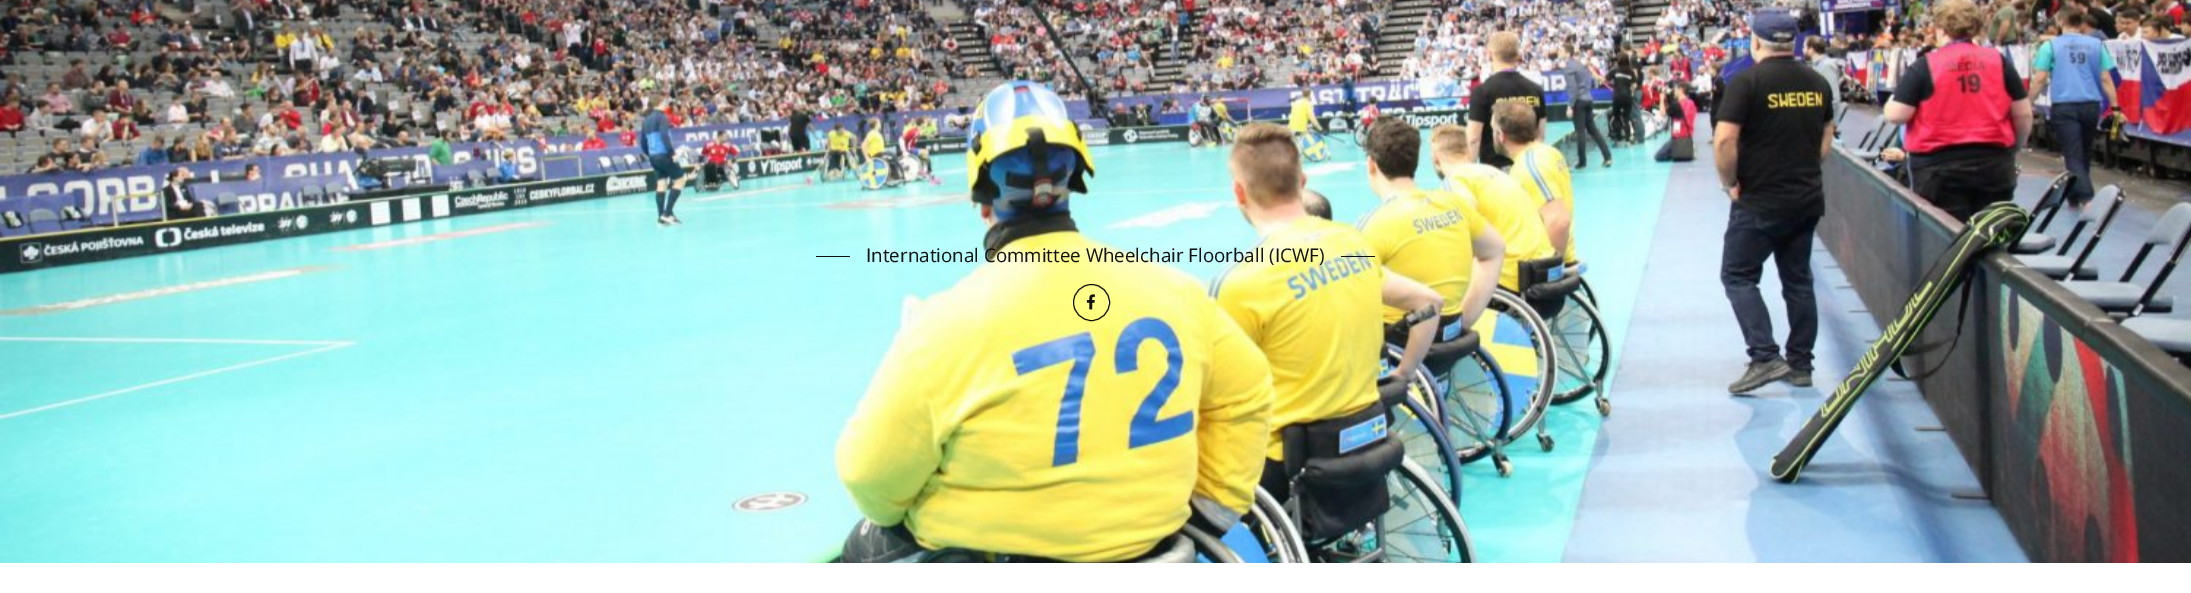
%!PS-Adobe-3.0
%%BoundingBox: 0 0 2191 593
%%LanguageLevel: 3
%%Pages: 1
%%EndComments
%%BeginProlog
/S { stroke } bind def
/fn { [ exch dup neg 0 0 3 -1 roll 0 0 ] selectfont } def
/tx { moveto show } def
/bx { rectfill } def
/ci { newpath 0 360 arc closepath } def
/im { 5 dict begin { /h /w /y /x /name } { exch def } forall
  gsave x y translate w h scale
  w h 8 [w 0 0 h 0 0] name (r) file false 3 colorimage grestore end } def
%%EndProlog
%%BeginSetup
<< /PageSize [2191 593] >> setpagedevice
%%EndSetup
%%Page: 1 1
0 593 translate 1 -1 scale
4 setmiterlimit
1 setgray
0 0 2191 593 bx
(image0.raw) 0 0 2191 563 im
0.067 setgray
816 256 34 1 bx
/OpenSans-Regular 18.75 fn
(International Committee Wheelchair Floorball \(ICWF\)) 866 262 tx
1341 256 34 1 bx
1091.5 302.5 18 ci S
(image1.raw) 1086 294 9 16 im
showpage
%%EOF
